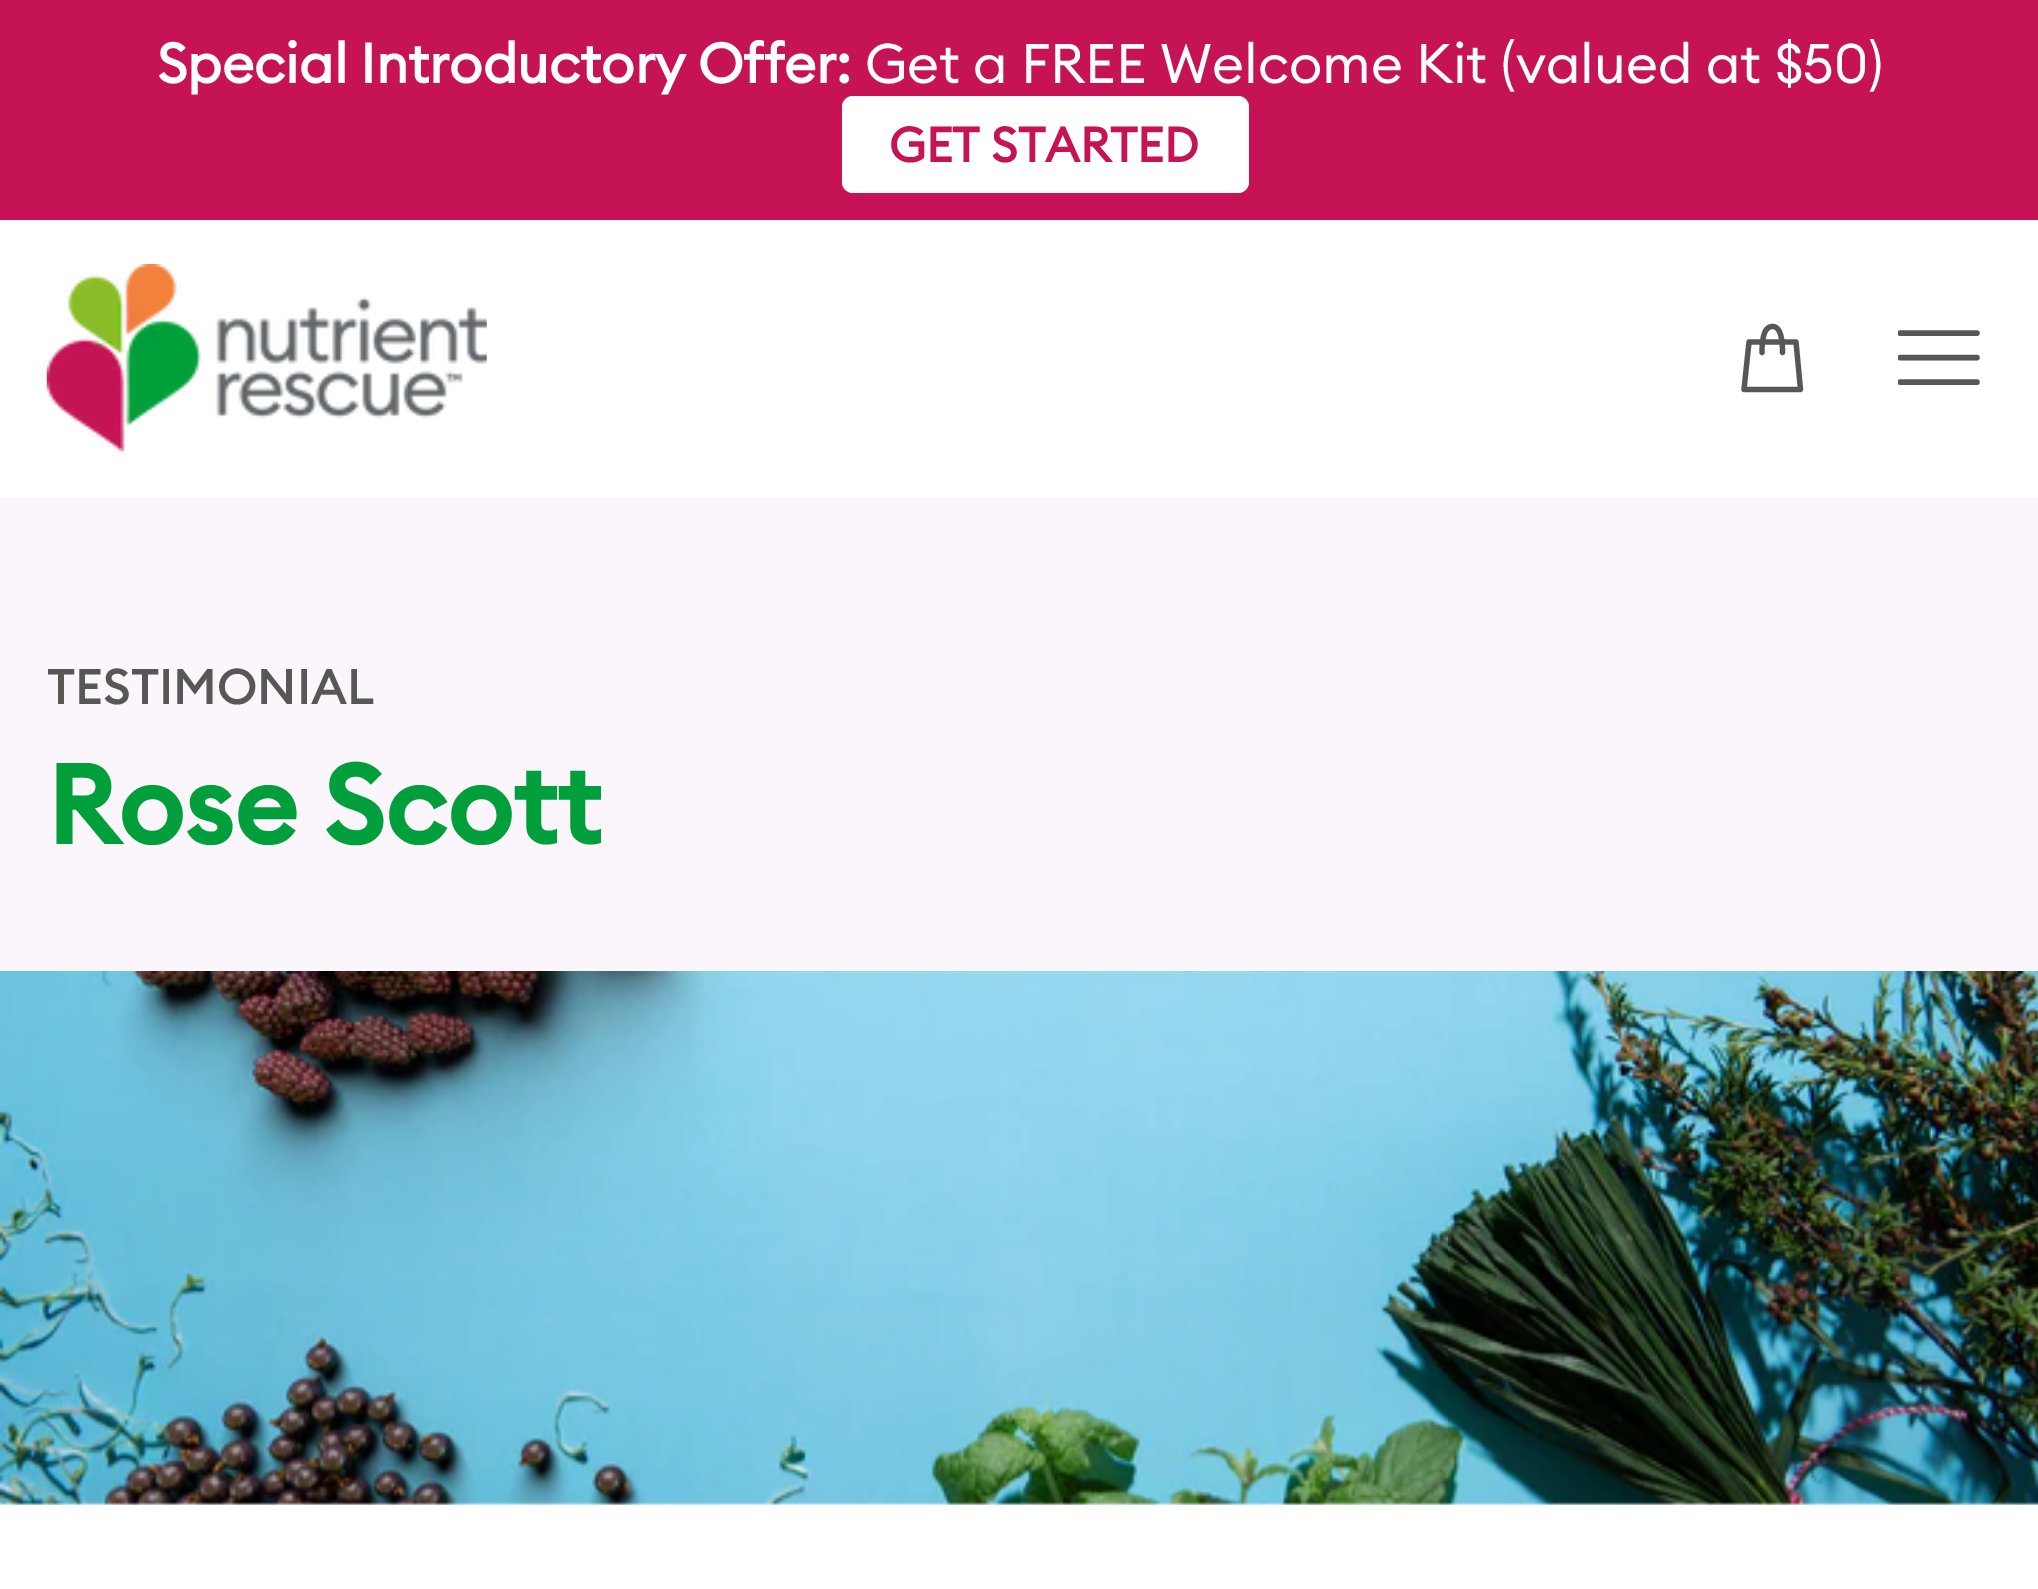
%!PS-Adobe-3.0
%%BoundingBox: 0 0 2038 1589
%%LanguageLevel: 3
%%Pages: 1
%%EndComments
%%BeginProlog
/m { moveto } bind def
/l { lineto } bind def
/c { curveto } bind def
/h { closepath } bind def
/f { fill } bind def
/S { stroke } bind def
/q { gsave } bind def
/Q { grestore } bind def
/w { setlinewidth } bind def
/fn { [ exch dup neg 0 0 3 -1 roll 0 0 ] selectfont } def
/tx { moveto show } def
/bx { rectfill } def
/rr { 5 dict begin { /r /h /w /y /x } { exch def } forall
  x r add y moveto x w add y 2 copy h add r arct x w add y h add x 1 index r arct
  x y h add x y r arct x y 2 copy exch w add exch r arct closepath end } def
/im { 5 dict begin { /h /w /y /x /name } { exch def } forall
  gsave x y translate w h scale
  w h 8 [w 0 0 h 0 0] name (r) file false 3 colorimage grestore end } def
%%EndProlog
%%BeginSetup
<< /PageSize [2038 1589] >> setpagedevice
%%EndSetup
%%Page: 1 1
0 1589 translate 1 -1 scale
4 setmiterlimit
1 setgray
0 0 2038 1589 bx
0.773 0.075 0.337 setrgbcolor
0 0 2038 220 bx
/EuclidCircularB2-Bold 55 fn
1 setgray
(Special Introductory Offer:) 157 83 tx
/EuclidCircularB-Regular 55 fn
(Get a FREE Welcome Kit \(valued at $50\)) 865 83 tx
842 96 407 97 11 rr f
/EuclidCircularB2-Bold 48 fn
0.773 0.075 0.337 setrgbcolor
(GET STARTED) 889 162 tx
(image0.raw) 46 264 441 187 im
0.341 0.341 0.337 setrgbcolor
5.2 w
1 setlinecap
1 setlinejoin
1762 352.5 m 1762 332 1766.5 326.5 1772.5 326.5 c 1778 326.5 1782.5 332 1782.5 352.5 c S
1749 342 m 1796 342 l 1800.5 389.5 l 1744 389.5 l h S
q
1898 330 82 55 rectclip
5.5 w
0 setlinejoin
1900 333 m 1977 333 l S
1900 357.5 m 1977 357.5 l S
1900 382 m 1977 382 l S
Q
0.984 0.965 0.984 setrgbcolor
0 498 2038 1006 bx
/EuclidCircularB-Medium 49.5 fn
0.341 0.341 0.337 setrgbcolor
(TESTIMONIAL) 47 704 tx
/EuclidCircularB-Bold 110 fn
0.004 0.624 0.231 setrgbcolor
(Rose Scott) 47 844 tx
(image1.raw) 0 971 2038 534 im
showpage
%%EOF
